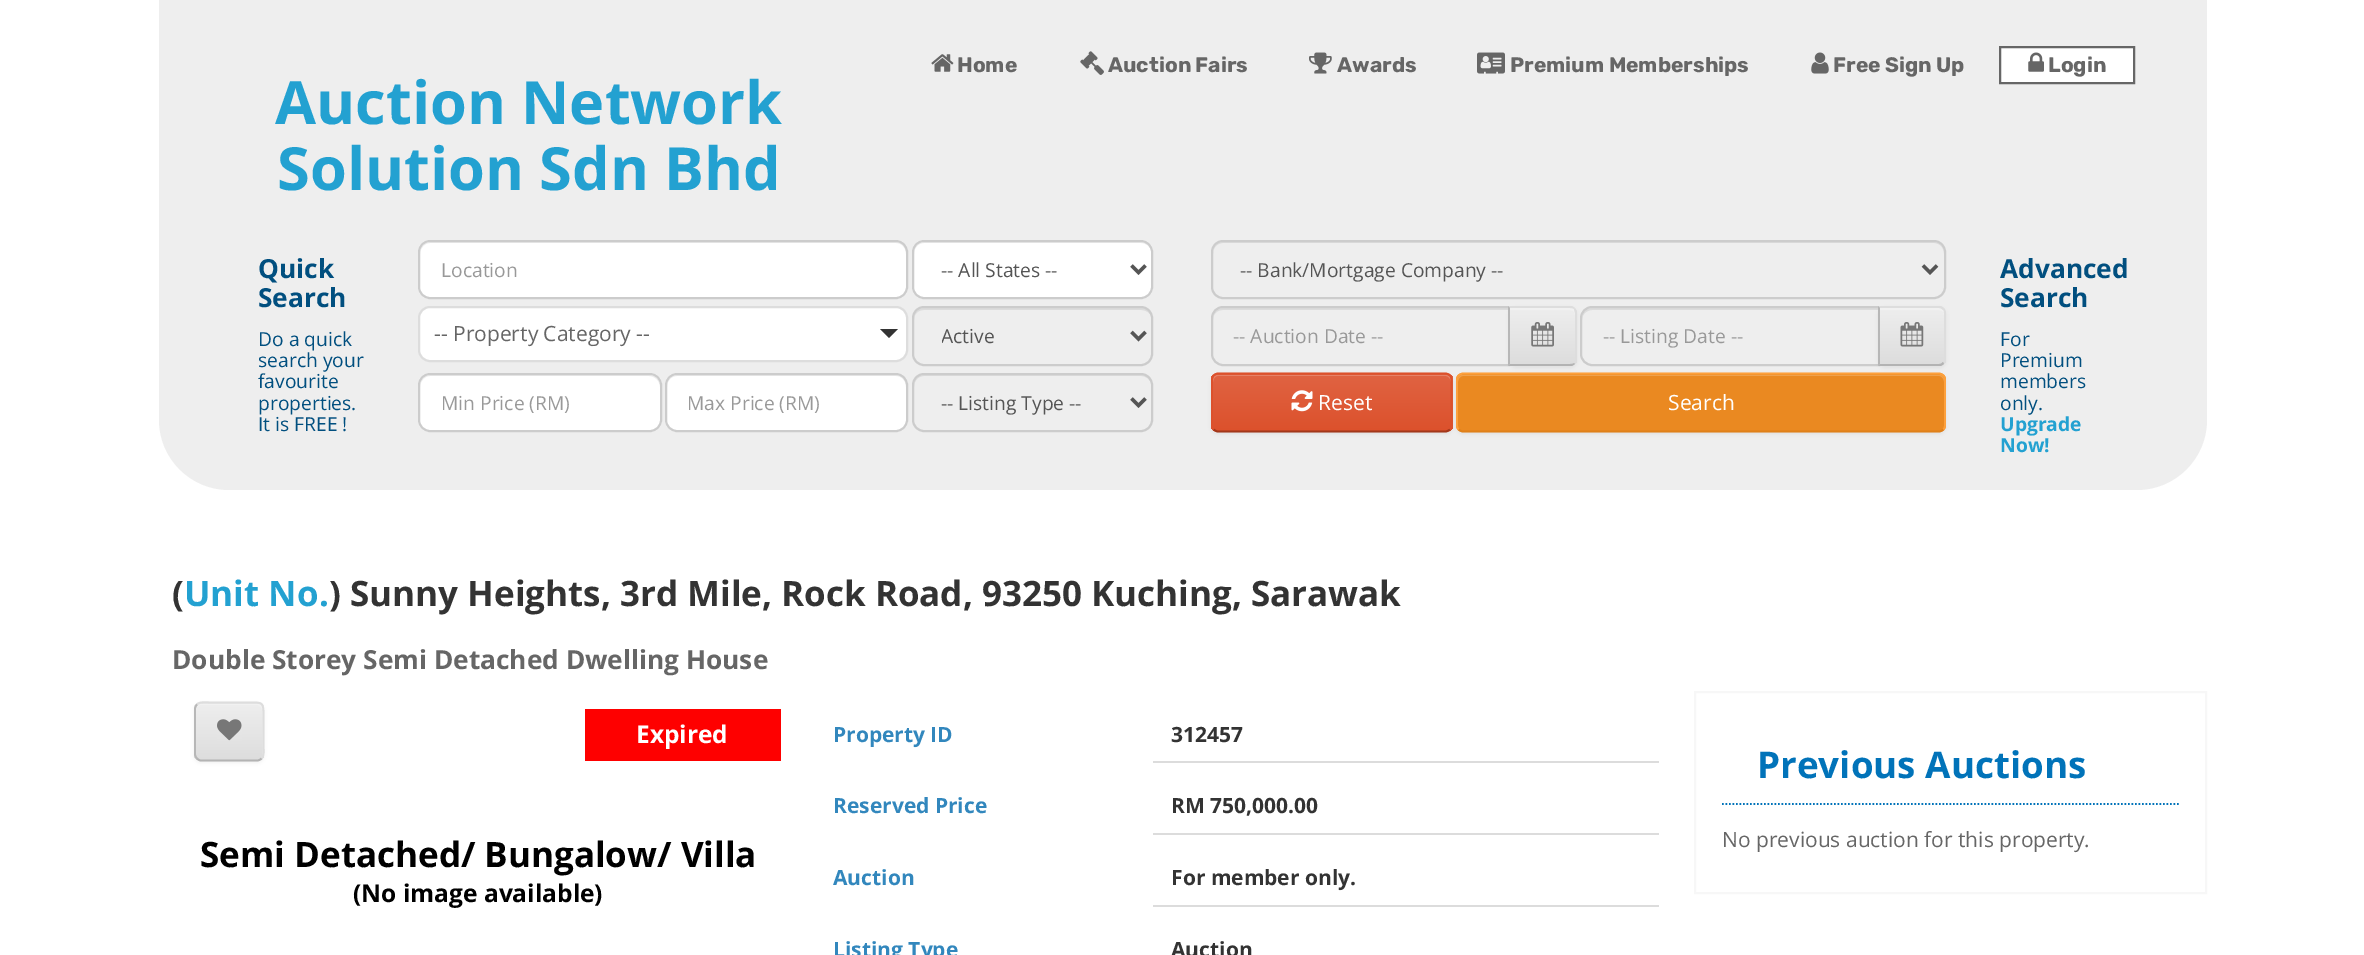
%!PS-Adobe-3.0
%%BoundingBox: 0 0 2364 955
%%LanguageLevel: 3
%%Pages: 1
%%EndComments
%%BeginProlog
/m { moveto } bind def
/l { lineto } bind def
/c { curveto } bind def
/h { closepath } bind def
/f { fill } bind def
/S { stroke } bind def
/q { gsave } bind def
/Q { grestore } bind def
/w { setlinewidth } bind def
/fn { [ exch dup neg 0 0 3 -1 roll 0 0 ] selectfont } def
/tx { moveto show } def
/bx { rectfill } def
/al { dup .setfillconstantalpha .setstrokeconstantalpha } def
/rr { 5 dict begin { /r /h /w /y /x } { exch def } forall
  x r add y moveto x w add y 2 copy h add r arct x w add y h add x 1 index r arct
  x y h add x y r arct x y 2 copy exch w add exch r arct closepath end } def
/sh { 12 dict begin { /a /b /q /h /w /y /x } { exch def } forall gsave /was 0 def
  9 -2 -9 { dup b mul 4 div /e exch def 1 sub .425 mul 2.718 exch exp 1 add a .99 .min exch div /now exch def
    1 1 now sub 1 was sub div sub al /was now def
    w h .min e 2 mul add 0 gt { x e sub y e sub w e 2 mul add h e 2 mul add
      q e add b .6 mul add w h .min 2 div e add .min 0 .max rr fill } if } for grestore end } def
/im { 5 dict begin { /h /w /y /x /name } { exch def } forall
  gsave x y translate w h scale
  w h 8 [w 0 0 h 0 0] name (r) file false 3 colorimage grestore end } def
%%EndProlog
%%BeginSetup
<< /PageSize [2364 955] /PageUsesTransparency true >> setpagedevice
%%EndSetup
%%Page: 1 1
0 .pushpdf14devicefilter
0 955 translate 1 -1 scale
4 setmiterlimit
1 setgray
0 0 2364 955 bx
0.933 setgray
159 0 m 2207 0 l 2207 420 l 2207 458.5 2175.5 490 2137 490 c 229 490 l 190.5 490 159 458.5 159 420 c h f
(image0.raw) 931 54 23 18 im
/Rubik-Bold 21 fn
0.4 setgray
(Home) 957 72 tx
(image1.raw) 1080 51 24 24 im
(Auction Fairs) 1108 72 tx
(image2.raw) 1309 52 23 22 im
(Awards) 1337 72 tx
(image3.raw) 1477 52 28 22 im
(Premium Memberships) 1510 72 tx
(image4.raw) 1811 52 18 22 im
(Free Sign Up) 1833 72 tx
1 setgray
2000 47 m 2134 47 l 2134 83 l 2000 83 l h q f Q
0.4 setgray
2 w
S
(image5.raw) 2028 52 16 20 im
(Login) 2048 72 tx
/OpenSans-Bold 59.5 fn
0.137 0.631 0.82 setrgbcolor
(Auction Network) 275 124 tx
(Solution Sdn Bhd) 277 190 tx
/OpenSans-Bold 26.25 fn
0.004 0.31 0.498 setrgbcolor
(Quick) 258 278 tx
(Search) 258 307 tx
/OpenSans-Regular 19.25 fn
(Do a quick) 258 346 tx
(search your) 258 367 tx
(favourite) 258 388 tx
(properties.) 258 410 tx
(It is FREE !) 258 431 tx
1 setgray
418 240 490 59 12 rr f
0.925 setgray
430 243 m 896 243 l 902 243 906 248 906 254 c 906 289 l 905 293 l 906 291 907 289 907 287 c 907 253 l 907 247 902 242 896 242 c 431 242 l 425 242 420 247 420 253 c 420 254 l 420 248 425 243 430 243 c h f
0.8 setgray
419 241 488 57 11 rr S
0.6 setgray
(Location) 441 277 tx
1 setgray
912 240 241 59 12 rr f
0.925 setgray
924 243 m 1141 243 l 1147 243 1152 248 1152 254 c 1152 253 l 1152 247 1147 242 1141 242 c 925 242 l 919 242 914 247 914 253 c 914 254 l 914 248 918 243 924 243 c h f
0.8 setgray
913 241 239 57 11 rr S
0.333 setgray
3.5 w
1131.5 265.5 m 1138.5 272.5 l 1145.5 265.5 l S
(-- All States --) 941 277 tx
1 setgray
419 307 488 54 11 rr q f Q
0.867 setgray
2 w
S
/OpenSans-Regular 21 fn
0.4 setgray
(-- Property Category --) 434 341 tx
0.2 setgray
880 329 m 898 329 l 889 338 l h f
0.863 setgray
924 310 m 1141 310 l 1147 310 1152 314 1152 320 c 1152 319 l 1152 313 1147 308 1141 308 c 925 308 l 919 308 914 313 914 319 c 914 320 l 914 314 918 310 924 310 c h f
0.8 setgray
913 307 239 58 11 rr S
0.333 setgray
3.5 w
1131.5 332 m 1138.5 339 l 1145.5 332 l S
q
942 320 161 30 rectclip
/OpenSans-Regular 19.25 fn
(Active) 941 343 tx
Q
1 setgray
418 373 244 59 12 rr f
0.925 setgray
430 376 m 649 376 l 655 376 660 381 660 387 c 660 386 l 660 380 655 375 649 375 c 431 375 l 425 375 420 380 420 386 c 420 387 l 420 381 425 376 430 376 c h f
0.8 setgray
2 w
419 374 242 57 11 rr S
/OpenSans-Regular 19.25 fn
0.6 setgray
(Min Price \(RM\)) 441 410 tx
1 setgray
665 373 243 59 12 rr f
0.925 setgray
677 376 m 896 376 l 902 376 906 381 906 387 c 906 422 l 905 426 l 906 424 907 422 907 420 c 907 386 l 907 380 902 375 896 375 c 678 375 l 672 375 667 380 667 386 c 667 387 l 667 381 671 376 677 376 c h f
0.8 setgray
666 374 241 57 11 rr S
0.6 setgray
(Max Price \(RM\)) 687 410 tx
0.863 setgray
924 376 m 1141 376 l 1147 376 1152 381 1152 387 c 1152 386 l 1152 380 1147 375 1141 375 c 925 375 l 919 375 914 380 914 386 c 914 387 l 914 381 918 376 924 376 c h f
0.8 setgray
913 374 239 57 11 rr S
0.333 setgray
3.5 w
1131.5 398.5 m 1138.5 405.5 l 1145.5 398.5 l S
(-- Listing Type --) 941 410 tx
0.863 setgray
1223 243 m 1934 243 l 1940 243 1944 248 1944 254 c 1944 248 1940 242 1933 242 c 1224 242 l 1217 242 1213 248 1213 254 c 1213 248 1217 243 1223 243 c h f
0.8 setgray
2 w
1212 241 733 57 11 rr S
0.333 setgray
3.5 w
1923 265.5 m 1930 272.5 l 1937 265.5 l S
(-- Bank/Mortgage Company --) 1240 277 tx
0.863 setgray
1223 310 m 1508 310 l 1508 364 l 1509 364 l 1509 308 l 1224 308 l 1218 308 1213 313 1213 319 c 1213 320 l 1213 314 1217 310 1223 310 c h f
0.8 setgray
2 w
1223 307 m 1509 307 l 1509 365 l 1223 365 l 1217 365 1212 360 1212 354 c 1212 318 l 1212 312 1217 307 1223 307 c h S
0.6 setgray
(-- Auction Date --) 1233 343 tx
0 setgray
1211 375 242 59 7 2 0.05 sh
0.875 0.361 0.224 setrgbcolor
1211 373 242 59 7 rr f
q
1211 373 242 59 7 rr clip newpath
q 1211 375 m 1453 375 l 1453 431 l 1211 431 l h clip newpath
<< /ShadingType 2 /ColorSpace /DeviceRGB /Coords [1332 375 1332 431] /Extend [true true] /Function << /FunctionType 2 /Domain [0 1] /C0 [0.878 0.388 0.259] /C1 [0.863 0.318 0.173] /N 1 >> >> shfill Q
Q
0.902 0.51 0.408 setrgbcolor
1218 376 m 1446 376 l 1448 376 1451 379 1451 382 c 1451 379 1451 376 1447 375 c 1217 375 l 1213 376 1213 379 1213 382 c 1213 379 1215 376 1218 376 c h f
0.635 0.216 0.102 setrgbcolor
1.8 w
1450 429.5 m 1448.5 430.5 1447 431.5 1445.5 431.5 c 1218 431.5 l 1216.5 431.5 1215 430.5 1213.5 429.5 c S
0.863 0.318 0.173 setrgbcolor
1213.5 429.5 m 1212.5 428.5 1212 427 1212 425 c 1212 380 l 1212 378 1212.5 376.5 1213.5 375.5 c 1215 374.5 1216.5 373.5 1218 373.5 c 1445.5 373.5 l 1447 373.5 1448.5 374.5 1450 375.5 c 1451 376.5 1451.5 378 1451.5 380 c 1451.5 425 l 1451.5 427 1451 428.5 1450 429.5 c S
0 setgray
1456 375 490 59 7 2 0.05 sh
0.918 0.537 0.129 setrgbcolor
1456 373 490 59 7 rr f
0.933 0.631 0.302 setrgbcolor
1463 376 m 1939 376 l 1942 376 1944 379 1944 382 c 1944 380 l 1944 377 1942 375 1939 375 c 1463 375 l 1460 375 1458 377 1458 380 c 1458 382 l 1458 379 1460 376 1463 376 c h f
0.875 0.502 0.098 setrgbcolor
1943.5 429.5 m 1942 430.5 1940.5 431.5 1939 431.5 c 1463 431.5 l 1461.5 431.5 1460 430.5 1458.5 429.5 c S
0.992 0.627 0.235 setrgbcolor
1458.5 429.5 m 1457.5 428.5 1457 427 1457 425 c 1457 380 l 1457 378 1457.5 376.5 1458.5 375.5 c 1460 374.5 1461.5 373.5 1463 373.5 c 1939 373.5 l 1940.5 373.5 1942 374.5 1943.5 375.5 c 1944.5 376.5 1945 378 1945 380 c 1945 425 l 1945 427 1944.5 428.5 1943.5 429.5 c S
0 setgray
1509 308 68 60 7 2 0.05 sh
q
1509 306 m 1570 306 l 1574 306 1577 309 1577 313 c 1577 359 l 1577 363 1574 366 1570 366 c 1509 366 l h clip newpath
q 1510 308 m 1577 308 l 1577 364 l 1510 364 l h clip newpath
<< /ShadingType 2 /ColorSpace /DeviceRGB /Coords [1543 308 1543 364] /Extend [true true] /Function << /FunctionType 2 /Domain [0 1] /C0 [0.933 0.933 0.933] /C1 [0.867 0.867 0.867] /N 1 >> >> shfill Q
Q
0.945 setgray
1510 310 m 1570 310 l 1573 310 1575 312 1575 315 c 1575 313 l 1575 310 1573 308 1570 308 c 1510 308 l h f
0.867 setgray
1508 306 m 1572 306 l 1575 308 l 1574 309 l 1573 308 1572 308 1570 308 c 1510 308 l h f
1577 361 m 1575 364 l 1574 363 l 1574 362 1575 360 1575 359 c 1575 313 l 1575 312 1574 310 1574 309 c 1575 308 l 1577 311 l h f
0.702 setgray
1575 364 m 1572 366 l 1508 366 l 1510 364 l 1570 364 l 1572 364 1573 364 1574 363 c h f
0.718 setgray
1510 308 m 1508 306 l 1508 366 l 1510 364 l h f
(image6.raw) 1531 322 23 25 im
0.863 setgray
1592 310 m 1878 310 l 1878 308 l 1593 308 l 1587 308 1582 313 1582 319 c 1582 320 l 1582 314 1587 310 1592 310 c h f
0.8 setgray
2 w
1592 307 m 1879 307 l 1879 365 l 1592 365 l 1586 365 1581 360 1581 354 c 1581 318 l 1581 312 1586 307 1592 307 c h S
0.6 setgray
(-- Listing Date --) 1603 343 tx
0 setgray
1878 308 68 60 7 2 0.05 sh
q
1878 306 m 1939 306 l 1943 306 1946 309 1946 313 c 1946 359 l 1946 363 1943 366 1939 366 c 1878 366 l h clip newpath
q 1880 308 m 1946 308 l 1946 364 l 1880 364 l h clip newpath
<< /ShadingType 2 /ColorSpace /DeviceRGB /Coords [1912 308 1912 364] /Extend [true true] /Function << /FunctionType 2 /Domain [0 1] /C0 [0.933 0.933 0.933] /C1 [0.867 0.867 0.867] /N 1 >> >> shfill Q
Q
0.945 setgray
1880 310 m 1939 310 l 1942 310 1944 312 1944 315 c 1944 313 l 1944 310 1942 308 1939 308 c 1880 308 l h f
0.867 setgray
1880 308 m 1878 306 l 1941 306 l 1944 308 l 1943 310 l 1942 309 1941 308 1939 308 c h f
1946 359 m 1946 313 l 1946 311 1945 309 1944 308 c 1943 310 l 1944 310 1944 312 1944 313 c 1944 359 l 1944 360 1944 362 1943 362 c 1944 364 l 1945 363 1946 361 1946 359 c h f
0.702 setgray
1878 366 m 1880 364 l 1939 364 l 1941 364 1942 363 1943 362 c 1944 364 l 1941 366 l h f
0.718 setgray
1878 366 m 1878 306 l 1880 308 l 1880 364 l h f
(image7.raw) 1900 322 24 25 im
(image8.raw) 1291 390 22 22 im
/OpenSans-Regular 21 fn
1 setgray
(Reset) 1318 410 tx
(Search) 1668 410 tx
/OpenSans-Bold 26.25 fn
0.004 0.31 0.498 setrgbcolor
(Advanced) 2000 278 tx
(Search) 2000 307 tx
/OpenSans-Regular 19.25 fn
(For) 2000 346 tx
(Premium) 2000 367 tx
(members) 2000 388 tx
(only.) 2000 410 tx
/OpenSans-Bold 19.25 fn
0.137 0.631 0.82 setrgbcolor
(Upgrade) 2000 431 tx
(Now!) 2000 452 tx
/OpenSans-Bold 35 fn
0.2 setgray
(\() 172 606 tx
0.137 0.631 0.82 setrgbcolor
(Unit No.) 184 606 tx
0.2 setgray
(\) Sunny Heights, 3rd Mile, Rock Road, 93250 Kuching, Sarawak) 329 606 tx
/OpenSans-Bold 26.25 fn
0.4 setgray
(Double Storey Semi Detached Dwelling House) 172 669 tx
0 setgray
194 704 70 59 7 2 0.05 sh
0.906 setgray
194 702 70 59 7 rr f
q
194 702 70 59 7 rr clip newpath
q 194 704 m 264 704 l 264 760 l 194 760 l h clip newpath
<< /ShadingType 2 /ColorSpace /DeviceRGB /Coords [229 704 229 760] /Extend [true true] /Function << /FunctionType 2 /Domain [0 1] /C0 [0.933 0.933 0.933] /C1 [0.867 0.867 0.867] /N 1 >> >> shfill Q
Q
0.2 al
1 setgray
201 705 m 257 705 l 260 705 262 708 262 710 c 262 756 l 261 759 l 262 758 263 756 263 755 c 263 709 l 263 706 261 704 258 704 c 201 704 l 198 704 196 706 196 709 c 196 710 l 196 708 198 705 201 705 c h f
1 al
0.867 setgray
1.8 w
197 704.5 m 200 701 207.5 702.5 210.5 702.5 c 248 702.5 l 263 702.5 263.5 701.5 263.5 716.5 c 263.5 746.5 l 263.5 750 264.5 755.5 261.5 758.5 c S
0.702 setgray
261.5 758.5 m 260.5 759.5 259 760.5 257 760.5 c 201 760.5 l 199.5 760.5 198 759.5 197 758.5 c S
0.718 setgray
197 758.5 m 196 757.5 195 756 195 754 c 195 709 l 195 707 196 705.5 197 704.5 c S
(image9.raw) 217 719 25 22 im
0.996 0 0 setrgbcolor
585 709 196 52 bx
/OpenSans-Bold 24.5 fn
1 setgray
(Expired) 636 743 tx
/OpenSans-Bold 35 fn
0 setgray
(Semi Detached/ Bungalow/ Villa) 200 867 tx
/OpenSans-Bold 24.5 fn
(\(No image available\)) 353 902 tx
/OpenSans-Bold 21 fn
0.196 0.529 0.741 setrgbcolor
(Property ID) 833 742 tx
0.863 setgray
1153 761 506 2 bx
0.2 setgray
(312457) 1171 742 tx
0.196 0.529 0.741 setrgbcolor
(Reserved Price) 833 813 tx
0.863 setgray
1153 833 506 2 bx
0.2 setgray
(RM 750,000.00) 1171 813 tx
0.196 0.529 0.741 setrgbcolor
(Auction) 833 885 tx
0.863 setgray
1153 905 506 2 bx
0.2 setgray
(For member only.) 1171 885 tx
0.196 0.529 0.741 setrgbcolor
(Listing Type) 833 957 tx
0.2 setgray
(Auction) 1171 957 tx
0.969 setgray
2 w
1695 692 511 201 rectstroke
0.004 0.451 0.725 setrgbcolor
1.8 w
[1.75 1.75] 0 setdash
1722 804 m 2179 804 l S
/OpenSans-Bold 36.75 fn
(Previous Auctions) 1757 778 tx
/OpenSans-Regular 21 fn
0.4 setgray
(No previous auction for this property.) 1722 847 tx
.poppdf14devicefilter showpage
%%EOF
